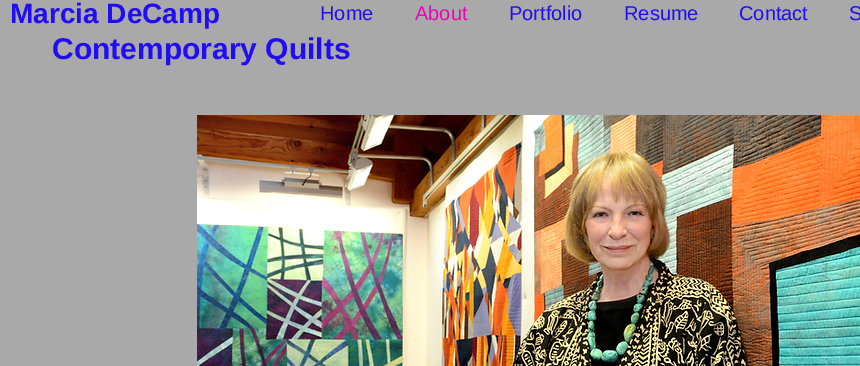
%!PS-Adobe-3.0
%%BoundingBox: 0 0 860 366
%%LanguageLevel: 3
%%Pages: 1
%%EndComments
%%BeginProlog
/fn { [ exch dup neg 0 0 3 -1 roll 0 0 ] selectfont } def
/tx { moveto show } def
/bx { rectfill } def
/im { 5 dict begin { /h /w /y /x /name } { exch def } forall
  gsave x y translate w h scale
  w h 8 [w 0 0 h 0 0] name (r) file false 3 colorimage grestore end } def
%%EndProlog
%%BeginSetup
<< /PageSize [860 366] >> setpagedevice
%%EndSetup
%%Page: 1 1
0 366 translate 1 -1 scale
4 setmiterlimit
0.663 setgray
0 0 860 366 bx
/LiberationSans-Bold 28 fn
0.129 0.051 0.953 setrgbcolor
(Marcia DeCamp) 10 23 tx
/LiberationSans-Bold 30 fn
(Contemporary Quilts) 52 59 tx
/LiberationSans-Regular 20 fn
(Home) 320 20 tx
0.918 0.016 0.722 setrgbcolor
(About) 415 20 tx
0.129 0.051 0.953 setrgbcolor
(Portfolio) 509 20 tx
(Resume) 624 20 tx
(Contact) 739 20 tx
(S) 849 20 tx
(image0.raw) 197 115 663 251 im
showpage
%%EOF
